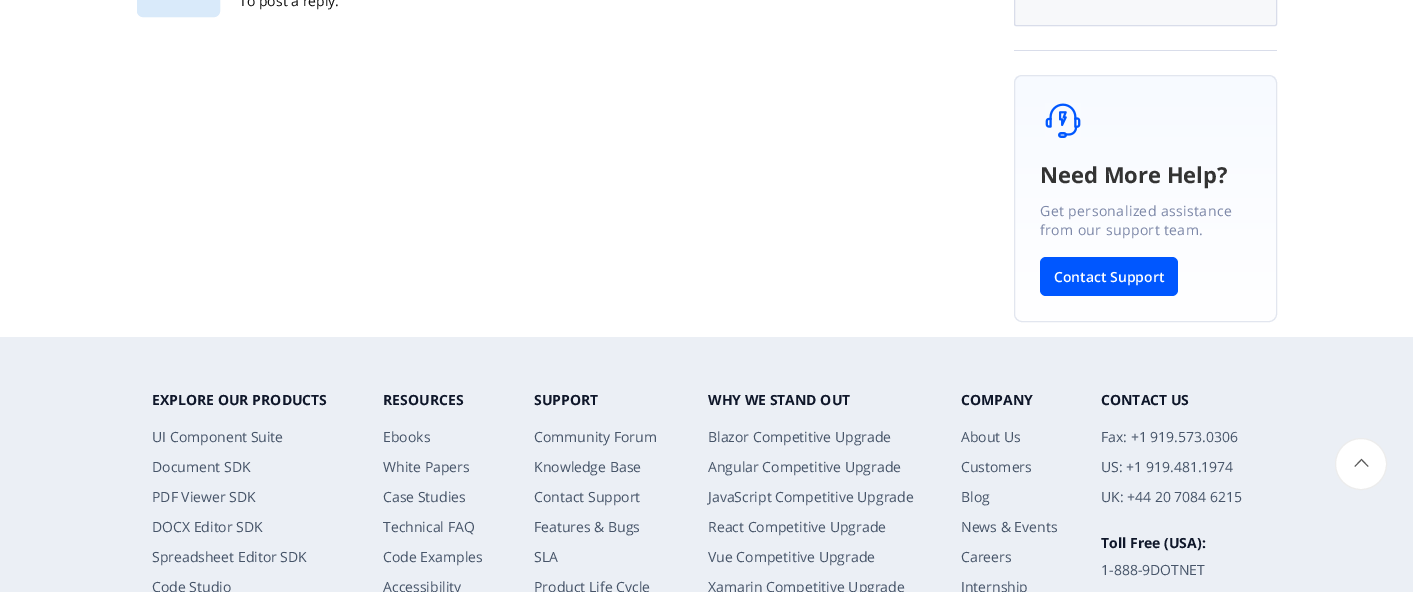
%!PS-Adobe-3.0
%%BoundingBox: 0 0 1413 592
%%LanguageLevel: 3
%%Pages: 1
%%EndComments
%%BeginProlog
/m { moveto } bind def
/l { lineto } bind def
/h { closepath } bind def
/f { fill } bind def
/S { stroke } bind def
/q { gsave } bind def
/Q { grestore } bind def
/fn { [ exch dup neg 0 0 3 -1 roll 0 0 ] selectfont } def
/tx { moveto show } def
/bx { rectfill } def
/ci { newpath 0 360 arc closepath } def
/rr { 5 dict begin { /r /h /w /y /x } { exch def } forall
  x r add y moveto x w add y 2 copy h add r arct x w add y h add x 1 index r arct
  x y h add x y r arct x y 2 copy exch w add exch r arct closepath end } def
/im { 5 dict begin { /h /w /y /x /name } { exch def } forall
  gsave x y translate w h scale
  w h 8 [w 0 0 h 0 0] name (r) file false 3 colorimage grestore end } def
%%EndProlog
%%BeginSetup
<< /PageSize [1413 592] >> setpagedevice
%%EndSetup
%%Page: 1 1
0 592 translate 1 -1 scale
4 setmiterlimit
1 setgray
0 0 1413 592 bx
0.851 0.918 0.98 setrgbcolor
137.5 -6.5 82 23 5.5 rr q f Q
S
/OpenSans-Regular 14 fn
0.067 setgray
(To post a reply.) 239 6 tx
0.969 0.973 0.98 setrgbcolor
1014.5 -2.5 262 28 1.5 rr q f Q
0.851 0.867 0.918 setrgbcolor
S
1014 50 263 1 bx
q
1014 75 263 247 8 rr clip newpath
q 1014 76 m 1277 76 l 1277 321 l 1014 321 l h clip newpath
<< /ShadingType 2 /ColorSpace /DeviceRGB /Coords [1146 76 1146 321] /Extend [true true] /Function << /FunctionType 2 /Domain [0 1] /C0 [0.969 0.98 1] /C1 [1 1 1] /N 1 >> >> shfill Q
Q
0.886 0.902 0.937 setrgbcolor
1014.5 75.5 262 246 7.5 rr S
(image0.raw) 1045 103 36 35 im
/OpenSans-Bold 22 fn
0.2 setgray
(Need More Help?) 1040 183 tx
/OpenSans-Regular 14 fn
0.494 0.537 0.663 setrgbcolor
1040 216 m 0.4 0 (Get personalized assistance) ashow
1040 235 m 0.4 0 (from our support team.) ashow
0 0.341 1 setrgbcolor
1040 257 138 39 6 rr f
/OpenSans-SemiBold 14 fn
1 setgray
(Contact Support) 1054 282 tx
0.922 0.937 0.961 setrgbcolor
0 337 1413 255 bx
/OpenSans-Bold 14 fn
0.059 0.09 0.165 setrgbcolor
(EXPLORE OUR PRODUCTS) 152 405 tx
/OpenSans-Regular 14 fn
0.278 0.333 0.412 setrgbcolor
(UI Component Suite) 152 442 tx
(Document SDK) 152 472 tx
(PDF Viewer SDK) 152 502 tx
(DOCX Editor SDK) 152 532 tx
(Spreadsheet Editor SDK) 152 562 tx
(Code Studio) 152 592 tx
/OpenSans-Bold 14 fn
0.059 0.09 0.165 setrgbcolor
(RESOURCES) 383 405 tx
/OpenSans-Regular 14 fn
0.278 0.333 0.412 setrgbcolor
(Ebooks) 383 442 tx
(White Papers) 383 472 tx
(Case Studies) 383 502 tx
(Technical FAQ) 383 532 tx
(Code Examples) 383 562 tx
(Accessibility) 383 592 tx
/OpenSans-Bold 14 fn
0.059 0.09 0.165 setrgbcolor
(SUPPORT) 534 405 tx
/OpenSans-Regular 14 fn
0.278 0.333 0.412 setrgbcolor
(Community Forum) 534 442 tx
(Knowledge Base) 534 472 tx
(Contact Support) 534 502 tx
(Features & Bugs) 534 532 tx
(SLA) 534 562 tx
(Product Life Cycle) 534 592 tx
/OpenSans-Bold 14 fn
0.059 0.09 0.165 setrgbcolor
(WHY WE STAND OUT) 708 405 tx
/OpenSans-Regular 14 fn
0.278 0.333 0.412 setrgbcolor
(Blazor Competitive Upgrade) 708 442 tx
(Angular Competitive Upgrade) 708 472 tx
(JavaScript Competitive Upgrade) 708 502 tx
(React Competitive Upgrade) 708 532 tx
(Vue Competitive Upgrade) 708 562 tx
(Xamarin Competitive Upgrade) 708 592 tx
/OpenSans-Bold 14 fn
0.059 0.09 0.165 setrgbcolor
(COMPANY) 961 405 tx
/OpenSans-Regular 14 fn
0.278 0.333 0.412 setrgbcolor
(About Us) 961 442 tx
(Customers) 961 472 tx
(Blog) 961 502 tx
(News & Events) 961 532 tx
(Careers) 961 562 tx
(Internship) 961 592 tx
/OpenSans-Bold 14 fn
0.059 0.09 0.165 setrgbcolor
(CONTACT US) 1101 405 tx
/OpenSans-Regular 14 fn
0.278 0.333 0.412 setrgbcolor
(Fax: +1 919.573.0306) 1101 442 tx
(US: +1 919.481.1974) 1101 472 tx
(UK: +44 20 7084 6215) 1101 502 tx
/OpenSans-Bold 14 fn
0.059 0.09 0.165 setrgbcolor
(Toll Free \(USA\):) 1101 548 tx
/OpenSans-Regular 14 fn
0.278 0.333 0.412 setrgbcolor
(1-888-9DOTNET) 1101 575 tx
1 setgray
1361 464 25.5 ci q f Q
0.925 setgray
S
(image1.raw) 1354 458 15 9 im
showpage
%%EOF
